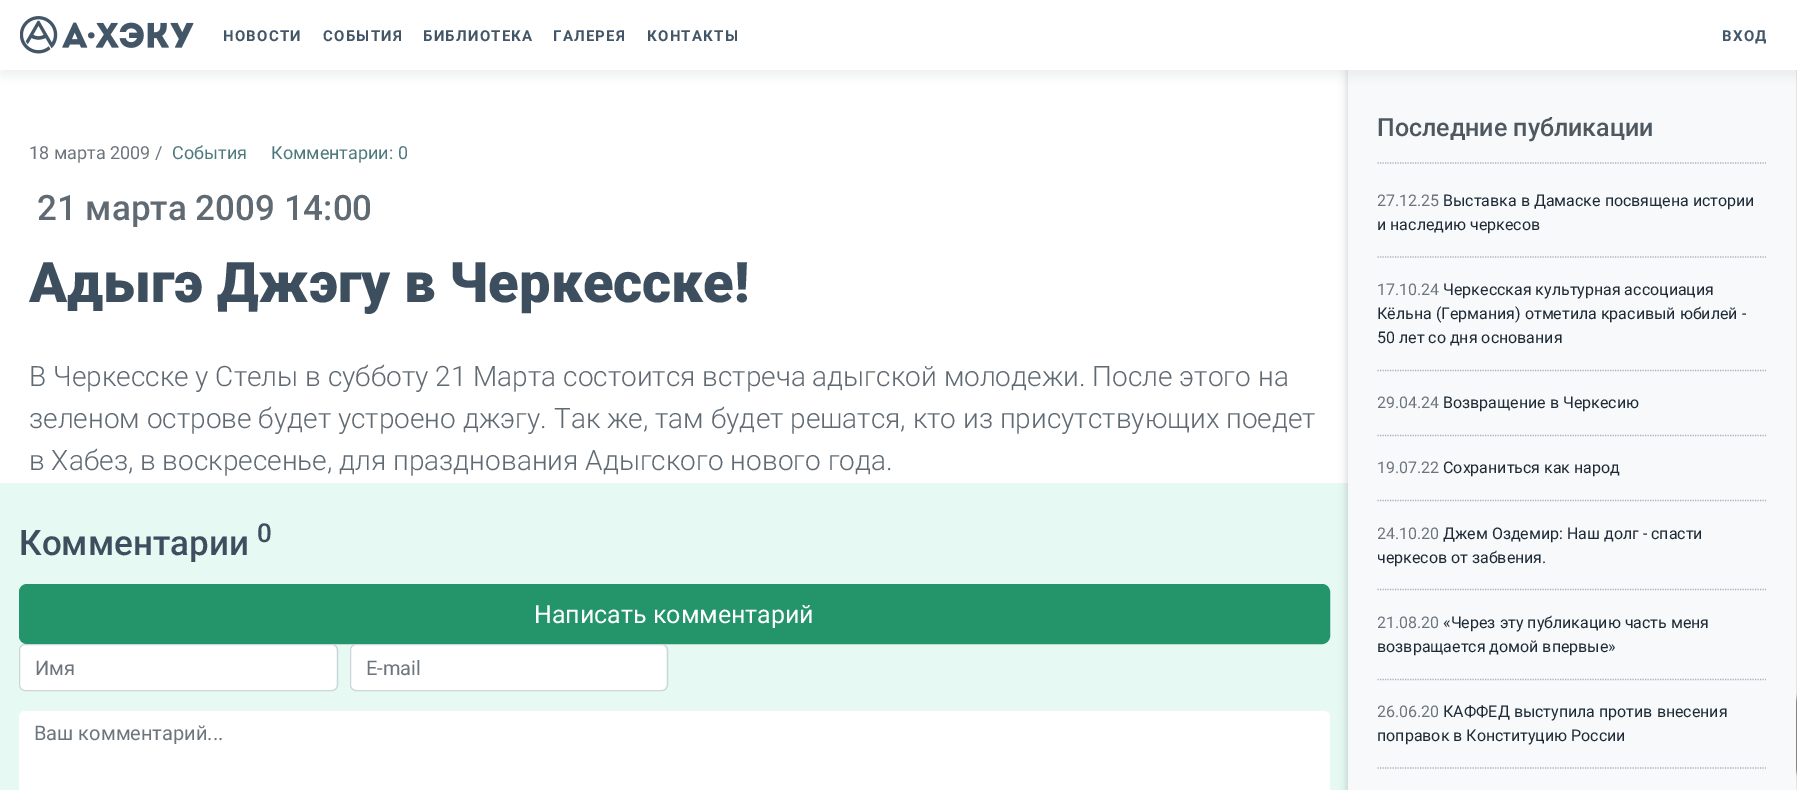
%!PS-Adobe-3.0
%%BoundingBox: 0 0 1797 790
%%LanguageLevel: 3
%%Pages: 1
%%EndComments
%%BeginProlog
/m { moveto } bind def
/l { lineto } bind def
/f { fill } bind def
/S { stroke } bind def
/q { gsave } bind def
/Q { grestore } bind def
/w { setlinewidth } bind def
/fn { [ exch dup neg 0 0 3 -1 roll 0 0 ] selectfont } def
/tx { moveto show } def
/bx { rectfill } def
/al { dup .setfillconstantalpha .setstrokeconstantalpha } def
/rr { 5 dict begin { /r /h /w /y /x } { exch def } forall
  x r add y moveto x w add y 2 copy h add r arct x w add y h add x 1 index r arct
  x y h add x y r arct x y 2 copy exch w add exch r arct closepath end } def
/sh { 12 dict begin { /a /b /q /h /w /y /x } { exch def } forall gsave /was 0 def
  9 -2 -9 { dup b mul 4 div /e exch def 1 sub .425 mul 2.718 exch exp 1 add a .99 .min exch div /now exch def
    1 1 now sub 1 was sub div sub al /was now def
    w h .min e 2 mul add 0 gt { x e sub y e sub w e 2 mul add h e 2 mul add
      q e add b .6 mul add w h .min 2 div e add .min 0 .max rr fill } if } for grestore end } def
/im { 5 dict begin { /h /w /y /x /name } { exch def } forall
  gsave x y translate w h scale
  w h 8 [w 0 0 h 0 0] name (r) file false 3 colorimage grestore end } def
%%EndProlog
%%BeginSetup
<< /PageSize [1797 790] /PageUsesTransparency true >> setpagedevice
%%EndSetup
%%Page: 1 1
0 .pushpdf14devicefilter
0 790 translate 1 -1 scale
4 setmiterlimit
1 setgray
0 0 1797 790 bx
0.906 0.976 0.953 setrgbcolor
0 483 1348 307 bx
0 setgray
1348 -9 448 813 0 4.5 0.2 sh
0.502 setgray
1710 698 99 75 2.5 3 1 sh
0.973 0.976 0.98 setrgbcolor
1348 70 448 720 bx
0.541 0.608 0.647 setrgbcolor
0 6 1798 70 0 6 0.15 sh
1 setgray
0 0 1797 70 bx
(image0.raw) 20 16 174 38 im
/Roboto-Bold 15 fn
0.263 0.337 0.404 setrgbcolor
223 41 m 1.25 0 (НОВОСТИ) ashow
323 41 m 1.25 0 (СОБЫТИЯ) ashow
423 41 m 1.25 0 (БИБЛИОТЕКА) ashow
553 41 m 1.25 0 (ГАЛЕРЕЯ) ashow
647 41 m 1.25 0 (КОНТАКТЫ) ashow
1722 41 m 1.25 0 (ВХОД) ashow
/Roboto-Regular 18 fn
0.424 0.459 0.49 setrgbcolor
(18 марта 2009) 29 159 tx
(/) 155 159 tx
0.306 0.478 0.494 setrgbcolor
(События) 172 159 tx
(Комментарии: 0) 271 159 tx
/Roboto-Medium 35 fn
0.376 0.416 0.451 setrgbcolor
(21 марта 2009 14:00) 37 220 tx
/Roboto-Black 56 fn
0.239 0.306 0.369 setrgbcolor
(Адыгэ Джэгу в Черкесске!) 29 302 tx
/Roboto-Light 28 fn
0.376 0.416 0.451 setrgbcolor
(В Черкесске у Стелы в субботу 21 Марта состоится встреча адыгской молодежи. После этого на) 29 386 tx
(зеленом острове будет устроено джэгу. Так же, там будет решатся, кто из присутствующих поедет) 29 428 tx
(в Хабез, в воскресенье, для празднования Адыгского нового года.) 29 470 tx
/Roboto-Medium 35 fn
0.239 0.306 0.369 setrgbcolor
(Комментарии) 19 555 tx
/Roboto-Medium 26 fn
(0) 257 542 tx
0.141 0.584 0.416 setrgbcolor
19.5 584.5 1310 59 7.5 rr q f Q
S
/Roboto-Regular 25 fn
1 setgray
(Написать комментарий) 534 623 tx
20 645 316 45 5 rr f
0.808 0.831 0.855 setrgbcolor
19.5 644.5 318 46 5.5 rr S
/Roboto-Regular 20 fn
0.424 0.459 0.49 setrgbcolor
(Имя) 35 675 tx
1 setgray
351 645 315 45 5 rr f
0.808 0.831 0.855 setrgbcolor
350.5 644.5 317 46 5.5 rr S
0.424 0.459 0.49 setrgbcolor
(E-mail) 366 675 tx
1 setgray
19 711 1311 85 6 rr f
0.424 0.459 0.49 setrgbcolor
(Ваш комментарий...) 34 740 tx
0.655 0.694 0.729 setrgbcolor
1.2 w
[1.25 1.25] 0 setdash
1377.5 163 m 1766 163 l S
/Roboto-Medium 25 fn
0.302 0.345 0.38 setrgbcolor
(Последние публикации) 1377 136 tx
0.655 0.694 0.729 setrgbcolor
1377.5 257 m 1766 257 l S
q
1378 169 388 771 rectclip
/Roboto-Regular 16 fn
0.424 0.459 0.49 setrgbcolor
(27.12.25) 1377 206 tx
Q
/Roboto-Regular 16 fn
0.118 0.169 0.216 setrgbcolor
(Выставка в Дамаске посвящена истории) 1443 206 tx
(и наследию черкесов) 1377 230 tx
0.655 0.694 0.729 setrgbcolor
1377.5 370.5 m 1766 370.5 l S
0.424 0.459 0.49 setrgbcolor
(17.10.24) 1377 295 tx
0.118 0.169 0.216 setrgbcolor
(Черкесская культурная ассоциация) 1443 295 tx
(Кёльна \(Германия\) отметила красивый юбилей -) 1377 319 tx
(50 лет со дня основания) 1377 343 tx
0.655 0.694 0.729 setrgbcolor
1377.5 435.5 m 1766 435.5 l S
q
1378 169 388 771 rectclip
0.424 0.459 0.49 setrgbcolor
(29.04.24) 1377 408 tx
Q
0.118 0.169 0.216 setrgbcolor
(Возвращение в Черкесию) 1443 408 tx
0.655 0.694 0.729 setrgbcolor
1377.5 500.5 m 1766 500.5 l S
0.424 0.459 0.49 setrgbcolor
(19.07.22) 1377 473 tx
0.118 0.169 0.216 setrgbcolor
(Сохраниться как народ) 1443 473 tx
0.655 0.694 0.729 setrgbcolor
1377.5 589.5 m 1766 589.5 l S
q
1378 169 388 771 rectclip
0.424 0.459 0.49 setrgbcolor
(24.10.20) 1377 539 tx
Q
0.118 0.169 0.216 setrgbcolor
(Джем Оздемир: Наш долг - спасти) 1443 539 tx
q
1378 169 388 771 rectclip
(черкесов от забвения.) 1377 563 tx
Q
0.655 0.694 0.729 setrgbcolor
1377.5 679.5 m 1766 679.5 l S
q
1378 169 388 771 rectclip
0.424 0.459 0.49 setrgbcolor
(21.08.20) 1377 628 tx
Q
0.118 0.169 0.216 setrgbcolor
(«Через эту публикацию часть меня) 1443 628 tx
(возвращается домой впервые») 1377 652 tx
0.655 0.694 0.729 setrgbcolor
1377.5 768 m 1766 768 l S
q
1378 169 388 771 rectclip
0.424 0.459 0.49 setrgbcolor
(26.06.20) 1377 717 tx
Q
0.118 0.169 0.216 setrgbcolor
(КАФФЕД выступила против внесения) 1443 717 tx
(поправок в Конституцию России) 1377 741 tx
.poppdf14devicefilter showpage
%%EOF
